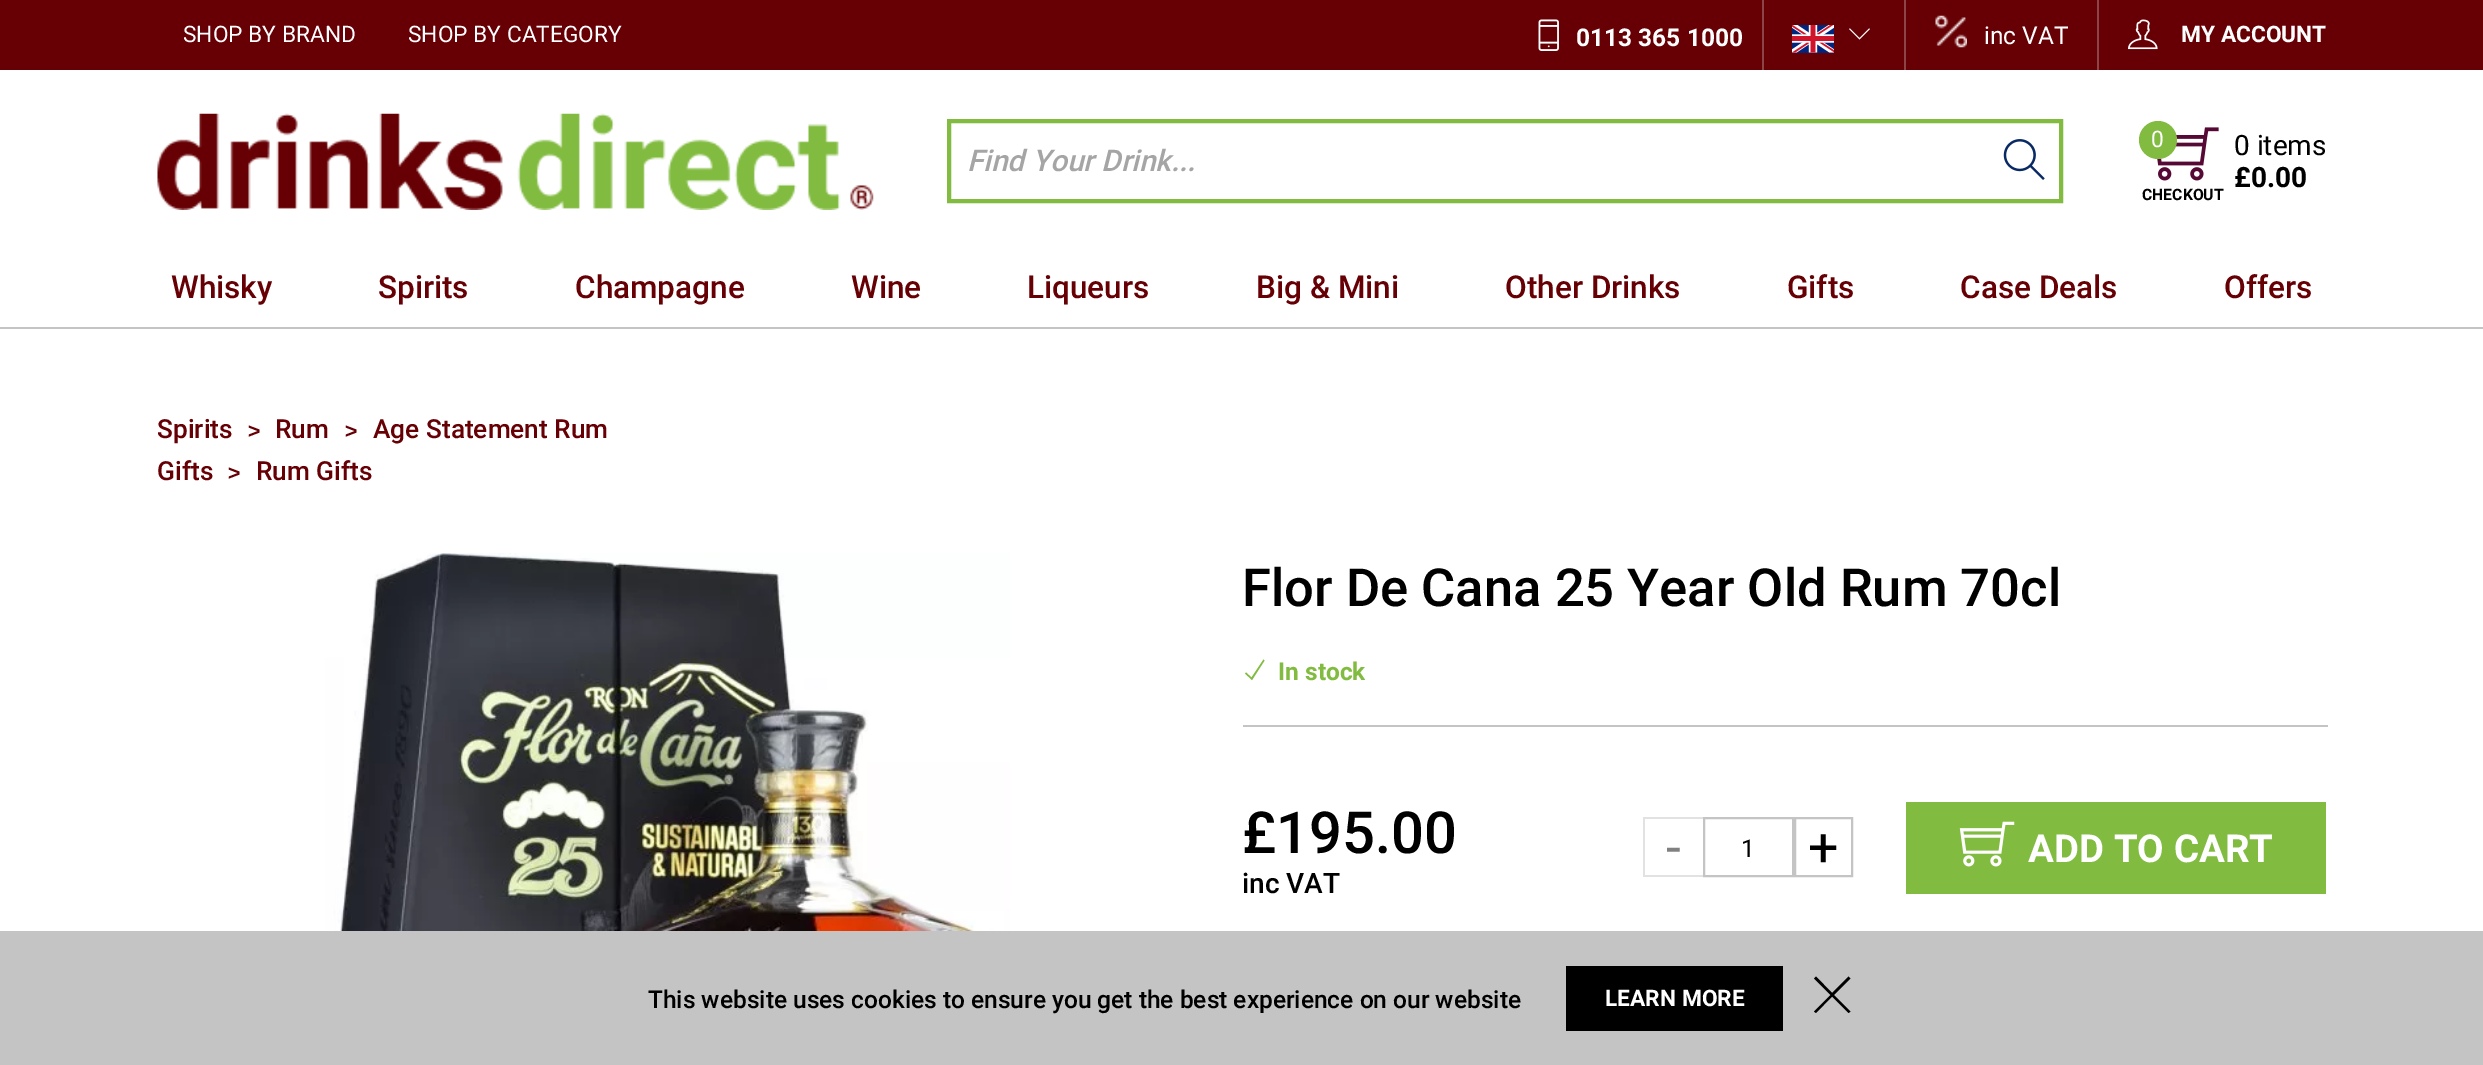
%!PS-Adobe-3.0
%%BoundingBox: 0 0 2483 1065
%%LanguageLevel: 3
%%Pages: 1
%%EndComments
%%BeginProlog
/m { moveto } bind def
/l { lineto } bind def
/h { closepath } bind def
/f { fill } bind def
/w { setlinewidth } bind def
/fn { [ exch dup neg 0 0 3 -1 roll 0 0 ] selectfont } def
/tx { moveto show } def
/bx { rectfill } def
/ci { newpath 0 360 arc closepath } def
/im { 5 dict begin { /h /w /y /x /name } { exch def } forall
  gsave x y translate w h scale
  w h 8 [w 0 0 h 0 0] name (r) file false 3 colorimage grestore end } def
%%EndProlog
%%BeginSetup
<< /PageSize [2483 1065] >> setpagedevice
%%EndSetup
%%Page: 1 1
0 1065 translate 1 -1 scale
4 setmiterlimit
1 setgray
0 0 2483 1065 bx
0.404 0 0.016 setrgbcolor
0 0 2483 70 bx
/Roboto-Regular 22.75 fn
1 setgray
(SHOP BY BRAND) 183 42 tx
(SHOP BY CATEGORY) 408 42 tx
(image0.raw) 1538 19 21 32 im
/Roboto-Bold 24.5 fn
(0113 365 1000) 1576 46 tx
0.553 0.267 0.278 setrgbcolor
1762 0 2 70 bx
(image1.raw) 1792 25 42 28 im
1 setgray
1870 29 m 1859.5 39.5 l 1849 29 l 1850 28.5 l 1859.5 38 l 1869 28.5 l h f
(image2.raw) 1935 15 32 33 im
0.553 0.267 0.278 setrgbcolor
1904 0 2 70 bx
/Roboto-Regular 24.5 fn
1 setgray
(inc VAT) 1984 44 tx
0.553 0.267 0.278 setrgbcolor
2097 0 2 70 bx
(image3.raw) 2128 19 30 31 im
/Roboto-Bold 22.75 fn
1 setgray
(MY ACCOUNT) 2181 42 tx
(image4.raw) 157 113 717 97 im
0.506 0.733 0.251 setrgbcolor
4 w
949 121 1112 80 rectstroke
/Roboto-MediumItalic 29.75 fn
0.647 setgray
(Find Your Drink...) 967 171 tx
(image5.raw) 2003 139 42 41 im
(image6.raw) 2157 127 62 54 im
0.506 0.733 0.251 setrgbcolor
2158 140 19 ci f
/Roboto-Regular 22.75 fn
1 setgray
(0) 2151 147 tx
/Roboto-Regular 28 fn
0 setgray
(0 items) 2234 155 tx
/Roboto-Bold 28 fn
(£0.00) 2234 187 tx
/Roboto-Bold 15.75 fn
(CHECKOUT) 2142 200 tx
0.769 setgray
0 327 2483 2 bx
/Roboto-Medium 31.5 fn
0.404 0 0.016 setrgbcolor
(Whisky) 171 298 tx
(Spirits) 378 298 tx
(Champagne) 575 298 tx
(Wine) 851 298 tx
(Liqueurs) 1027 298 tx
(Big & Mini) 1256 298 tx
(Other Drinks) 1505 298 tx
(Gifts) 1787 298 tx
(Case Deals) 1960 298 tx
(Offers) 2224 298 tx
/Roboto-Medium 26.25 fn
(Spirits) 157 438 tx
/LiberationSans-Bold 21 fn
(>) 248 438 tx
/Roboto-Medium 26.25 fn
(Rum) 275 438 tx
/LiberationSans-Bold 21 fn
(>) 345 438 tx
/Roboto-Medium 26.25 fn
(Age Statement Rum) 373 438 tx
(Gifts) 157 480 tx
/LiberationSans-Bold 21 fn
(>) 228 480 tx
/Roboto-Medium 26.25 fn
(Rum Gifts) 256 480 tx
(image7.raw) 325 553 685 378 im
/Roboto-Medium 52.5 fn
0 setgray
(Flor De Cana 25 Year Old Rum 70cl) 1242 606 tx
0.769 setgray
1243 725 1085 2 bx
0.506 0.733 0.251 setrgbcolor
1264.5 660.5 m 1252 680 l 1245 673.5 l 1246 672.5 l 1251.5 677.5 l 1263.5 659.5 l h f
/Roboto-Bold 24.5 fn
(In stock) 1278 680 tx
/Roboto-Medium 58 fn
0 setgray
(£195.00) 1242 853 tx
/Roboto-Medium 28 fn
(inc VAT) 1242 893 tx
0.886 setgray
1643 817 60 2 bx
1643 875 60 2 bx
1643 817 2 60 bx
/Roboto-Regular 54 fn
0.502 setgray
(-) 1666 866 tx
0.769 setgray
2 w
1704 818 89 58 rectstroke
/Roboto-Regular 24.5 fn
0 setgray
(1) 1741 857 tx
0.769 setgray
1795 818 57 58 rectstroke
/Roboto-Regular 54 fn
0 setgray
(+) 1808 866 tx
0.506 0.733 0.251 setrgbcolor
1906 802 420 92 bx
(image8.raw) 1959 821 56 46 im
/Roboto-Bold 38.5 fn
1 setgray
(ADD TO CART) 2028 862 tx
0.769 setgray
0 931 2483 134 bx
/Roboto-Medium 24.5 fn
0 setgray
(This website uses cookies to ensure you get the best experience on our website) 648 1008 tx
1566 966 217 65 bx
/Roboto-Bold 22.75 fn
1 setgray
(LEARN MORE) 1605 1006 tx
0 setgray
1834 995 m 1850.5 1011.5 l 1848.5 1013 l 1832 996.5 l 1816 1013 l 1814 1011.5 l 1830.5 995 l 1814 978.5 l 1816 976.5 l 1832 993 l 1848.5 976.5 l 1850.5 978.5 l h f
showpage
%%EOF
